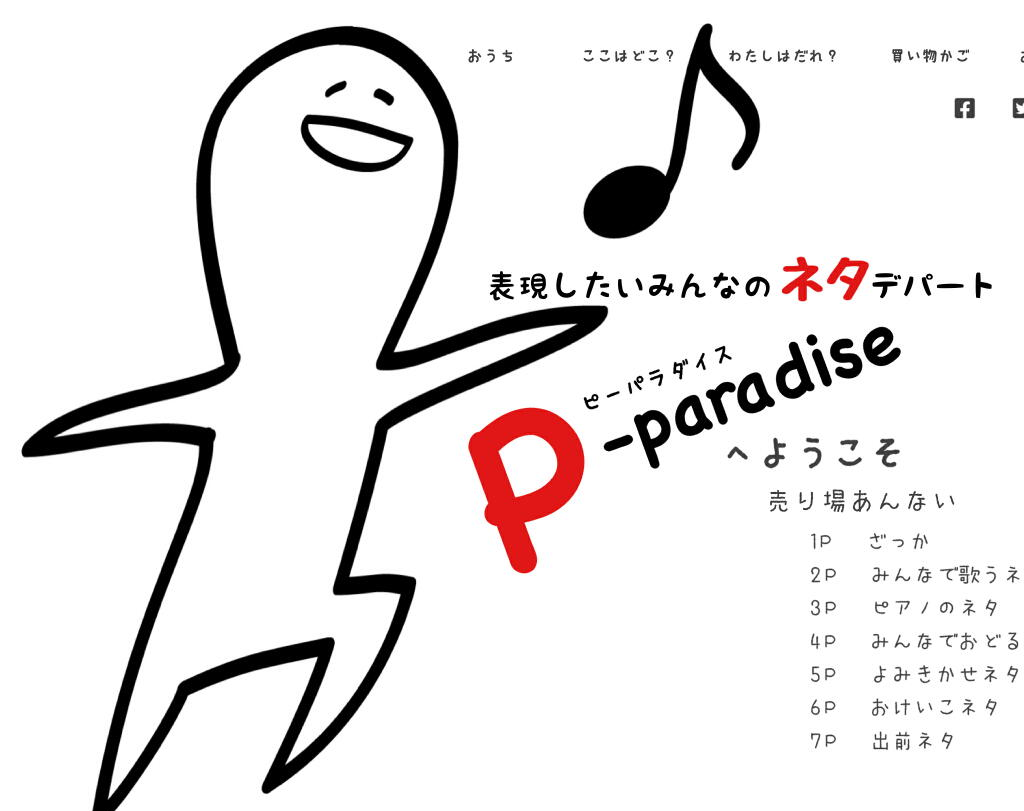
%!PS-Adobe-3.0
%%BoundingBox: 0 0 1024 811
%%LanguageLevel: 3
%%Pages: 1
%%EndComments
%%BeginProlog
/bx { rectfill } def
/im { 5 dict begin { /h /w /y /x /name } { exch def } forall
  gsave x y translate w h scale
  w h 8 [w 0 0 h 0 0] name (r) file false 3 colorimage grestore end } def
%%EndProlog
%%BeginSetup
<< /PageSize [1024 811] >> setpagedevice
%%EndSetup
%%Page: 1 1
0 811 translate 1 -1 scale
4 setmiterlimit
1 setgray
0 0 1024 811 bx
(image0.raw) 16 18 1008 793 im
showpage
%%EOF
